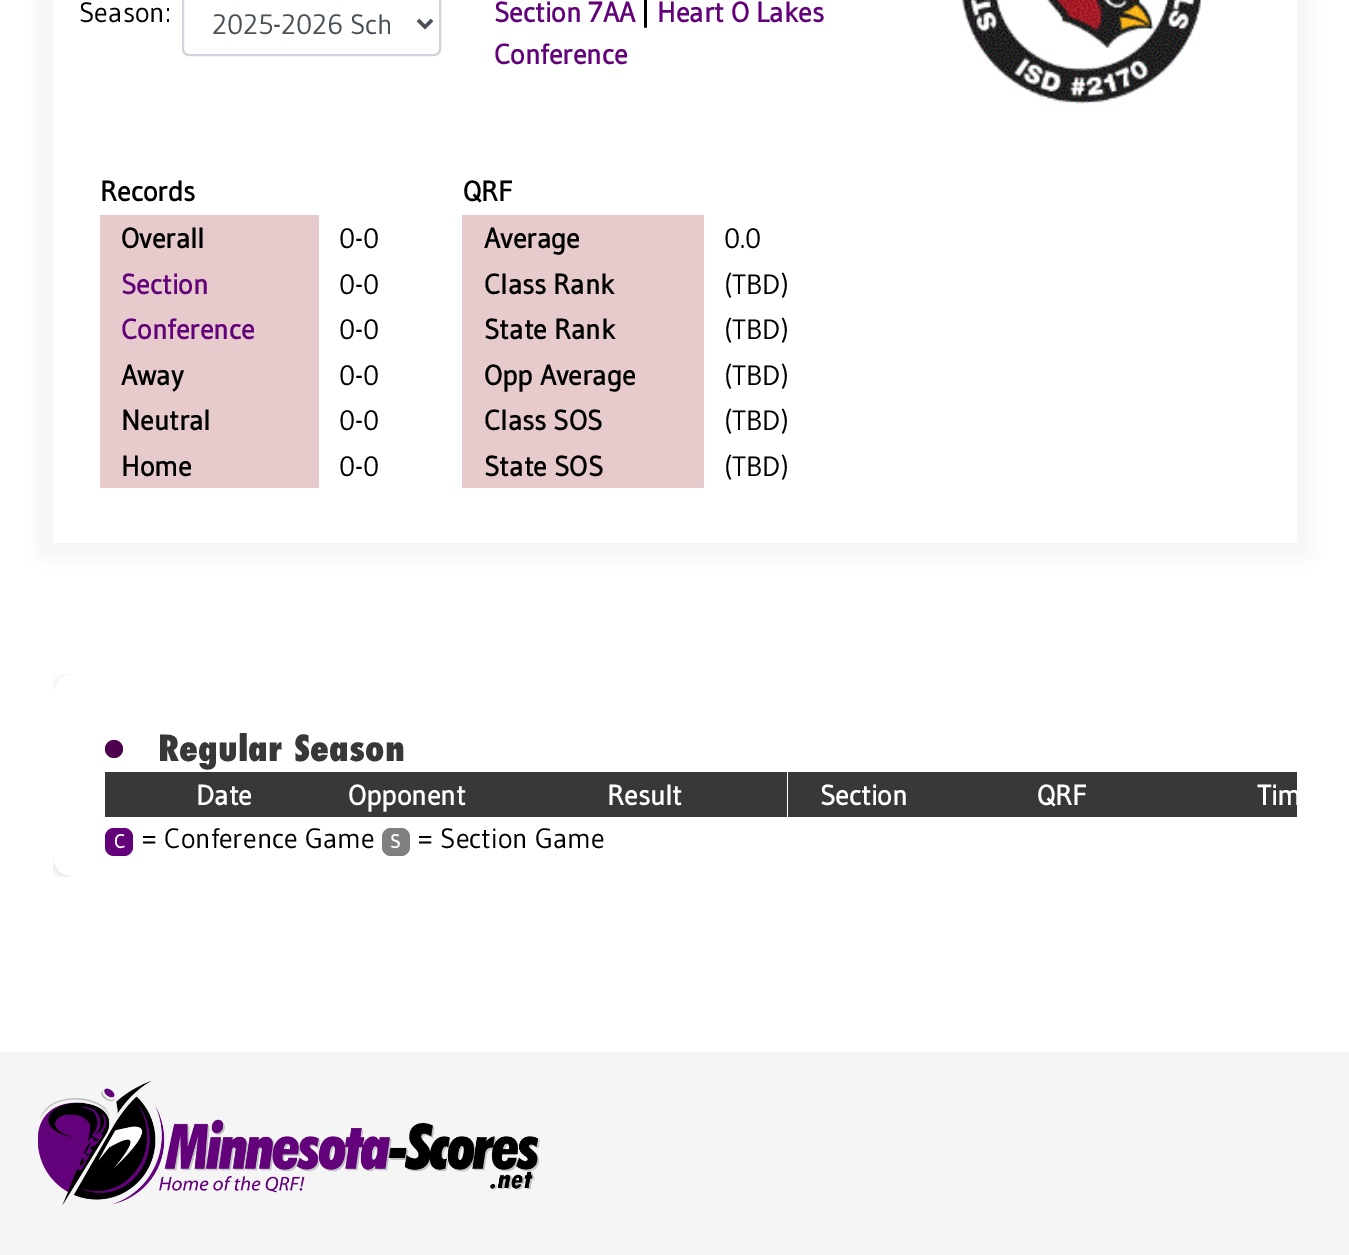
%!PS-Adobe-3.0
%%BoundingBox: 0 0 1349 1255
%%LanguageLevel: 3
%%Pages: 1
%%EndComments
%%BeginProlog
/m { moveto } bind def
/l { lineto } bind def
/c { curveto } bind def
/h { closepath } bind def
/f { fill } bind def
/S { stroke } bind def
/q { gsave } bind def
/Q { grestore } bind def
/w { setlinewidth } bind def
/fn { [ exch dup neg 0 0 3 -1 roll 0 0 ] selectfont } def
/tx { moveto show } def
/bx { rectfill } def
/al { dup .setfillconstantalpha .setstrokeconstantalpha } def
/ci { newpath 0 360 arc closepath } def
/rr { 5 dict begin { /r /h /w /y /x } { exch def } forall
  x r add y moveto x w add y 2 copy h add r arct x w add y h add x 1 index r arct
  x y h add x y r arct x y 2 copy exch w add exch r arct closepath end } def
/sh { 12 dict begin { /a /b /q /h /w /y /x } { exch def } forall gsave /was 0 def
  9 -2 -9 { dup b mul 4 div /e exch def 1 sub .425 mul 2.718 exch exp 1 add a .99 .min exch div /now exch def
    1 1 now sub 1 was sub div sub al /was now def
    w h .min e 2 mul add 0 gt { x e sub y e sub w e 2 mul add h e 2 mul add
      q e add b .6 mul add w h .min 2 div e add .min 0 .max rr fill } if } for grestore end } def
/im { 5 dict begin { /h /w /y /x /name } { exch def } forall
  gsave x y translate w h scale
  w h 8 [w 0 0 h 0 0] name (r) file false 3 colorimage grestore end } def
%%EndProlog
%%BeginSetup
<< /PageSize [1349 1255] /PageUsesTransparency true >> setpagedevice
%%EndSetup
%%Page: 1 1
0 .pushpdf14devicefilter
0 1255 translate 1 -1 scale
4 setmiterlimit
1 setgray
0 0 1349 1255 bx
q
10 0 m 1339 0 l 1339 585 l 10 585 l h 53 -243 m 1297 -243 l 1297 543 l 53 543 l h eoclip newpath
0.22 setgray
40 -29 1269 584 0 9.5 0.06 sh
Q
/Gudea-Regular 28 fn
0 setgray
(Season:) 79 22 tx
0.808 0.831 0.855 setrgbcolor
2 w
183 -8 257 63 6 rr S
0.286 0.314 0.341 setrgbcolor
3.5 w
418 20 m 425 27 l 432 20 l S
q
212 4 178 38 rectclip
(2025-2026 Sch) 212 34 tx
Q
/Gudea-Bold 28 fn
0.384 0.004 0.475 setrgbcolor
(Section 7AA) 494 22 tx
0 setgray
(|) 641 22 tx
0.384 0.004 0.475 setrgbcolor
(Heart O Lakes) 657 22 tx
(Conference) 494 64 tx
(image0.raw) 962 0 239 104 im
0 setgray
(Records) 100 201 tx
(QRF) 463 201 tx
0.902 0.792 0.8 setrgbcolor
100 215 219 273 bx
0 setgray
(Overall) 121 248 tx
/Gudea-Regular 28 fn
(0-0) 339 248 tx
/Gudea-Bold 28 fn
0.384 0.004 0.475 setrgbcolor
(Section) 121 294 tx
/Gudea-Regular 28 fn
0 setgray
(0-0) 339 294 tx
/Gudea-Bold 28 fn
0.384 0.004 0.475 setrgbcolor
(Conference) 121 339 tx
/Gudea-Regular 28 fn
0 setgray
(0-0) 339 339 tx
/Gudea-Bold 28 fn
(Away) 121 385 tx
/Gudea-Regular 28 fn
(0-0) 339 385 tx
/Gudea-Bold 28 fn
(Neutral) 121 430 tx
/Gudea-Regular 28 fn
(0-0) 339 430 tx
/Gudea-Bold 28 fn
(Home) 121 476 tx
/Gudea-Regular 28 fn
(0-0) 339 476 tx
0.902 0.792 0.8 setrgbcolor
462 215 242 273 bx
/Gudea-Bold 28 fn
0 setgray
(Average) 484 248 tx
/Gudea-Regular 28 fn
(0.0) 724 248 tx
/Gudea-Bold 28 fn
(Class Rank) 484 294 tx
/Gudea-Regular 28 fn
(\(TBD\)) 724 294 tx
/Gudea-Bold 28 fn
(State Rank) 484 339 tx
/Gudea-Regular 28 fn
(\(TBD\)) 724 339 tx
/Gudea-Bold 28 fn
(Opp Average) 484 385 tx
/Gudea-Regular 28 fn
(\(TBD\)) 724 385 tx
/Gudea-Bold 28 fn
(Class SOS) 484 430 tx
/Gudea-Regular 28 fn
(\(TBD\)) 724 430 tx
/Gudea-Bold 28 fn
(State SOS) 484 476 tx
/Gudea-Regular 28 fn
(\(TBD\)) 724 476 tx
q
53 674 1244 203 rectclip
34 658 m 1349 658 l 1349 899 l 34 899 l h 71 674 m 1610 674 l 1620 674 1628 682 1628 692 c 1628 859 l 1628 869 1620 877 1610 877 c 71 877 l 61 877 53 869 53 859 c 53 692 l 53 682 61 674 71 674 c h eoclip newpath
0.165 setgray
53 677 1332 203 18 6 0.15 sh
Q
0.302 0 0.302 setrgbcolor
114 749 9 ci f
/Futura-ExtraBold 35 fn
0.22 setgray
(Regular Season) 158 761 tx
105 772 682 45 bx
788 772 509 45 bx
/Gudea-Bold 28 fn
1 setgray
(Date) 196 805 tx
(Opponent) 348 805 tx
(Result) 607 805 tx
(Section) 820 805 tx
(QRF) 1037 805 tx
q
53 674 1244 203 rectclip
(Tim) 1257 805 tx
Q
0.384 0.004 0.475 setrgbcolor
105 828 28 28 9 rr f
/Gudea-Bold 19 fn
1 setgray
(C) 114 848 tx
/Gudea-Regular 28 fn
0 setgray
(= Conference Game) 141 848 tx
0.502 setgray
382 828 28 28 9 rr f
/Gudea-Bold 19 fn
1 setgray
(S) 390 848 tx
/Gudea-Regular 28 fn
0 setgray
(= Section Game) 417 848 tx
0.961 setgray
0 1052 1349 203 bx
(image1.raw) 38 1081 502 124 im
.poppdf14devicefilter showpage
%%EOF
